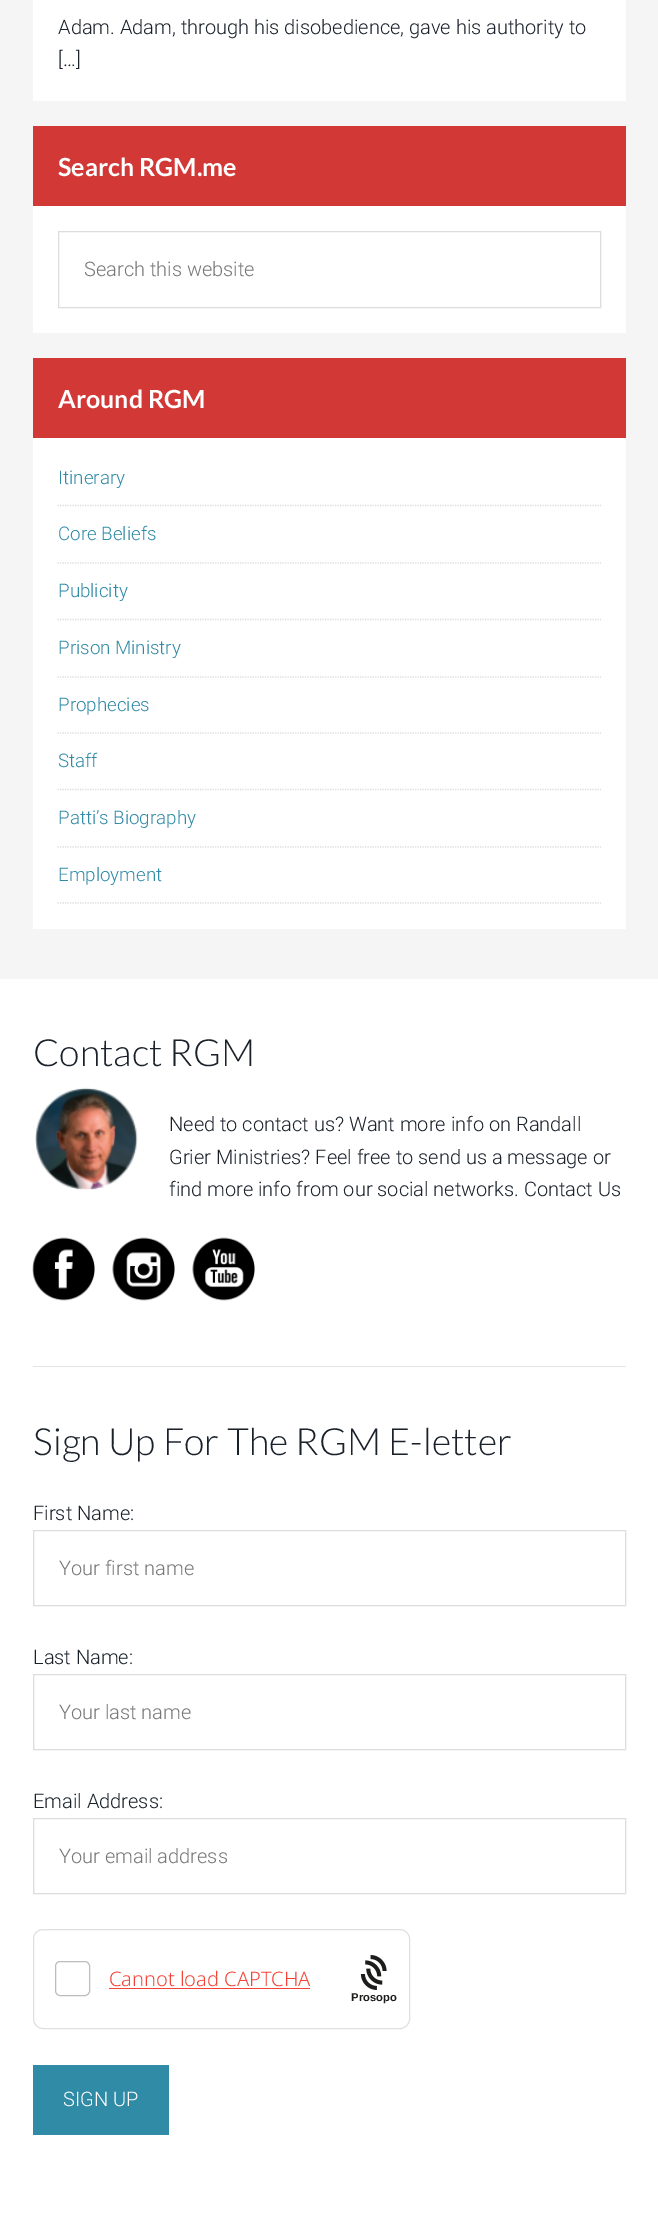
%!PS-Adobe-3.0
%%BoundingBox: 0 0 658 2231
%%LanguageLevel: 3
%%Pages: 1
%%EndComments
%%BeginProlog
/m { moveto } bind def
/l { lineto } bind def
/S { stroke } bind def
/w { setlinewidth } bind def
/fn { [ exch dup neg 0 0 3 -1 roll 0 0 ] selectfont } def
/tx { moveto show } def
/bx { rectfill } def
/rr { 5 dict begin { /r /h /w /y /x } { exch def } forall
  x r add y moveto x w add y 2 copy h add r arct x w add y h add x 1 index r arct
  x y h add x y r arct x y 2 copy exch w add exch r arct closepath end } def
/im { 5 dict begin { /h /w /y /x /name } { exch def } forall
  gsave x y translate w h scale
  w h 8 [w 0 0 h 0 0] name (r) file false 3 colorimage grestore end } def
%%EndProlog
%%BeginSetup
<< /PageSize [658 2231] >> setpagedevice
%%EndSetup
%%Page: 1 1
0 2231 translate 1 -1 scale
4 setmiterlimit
1 setgray
0 0 658 2231 bx
0.961 setgray
0 0 658 979 bx
1 setgray
33 0 593 101 bx
/Roboto-Light 20 fn
0.102 0.129 0.169 setrgbcolor
(Adam. Adam, through his disobedience, gave his authority to) 58 34 tx
([…]) 58 66 tx
1 setgray
33 206 593 127 bx
0.824 0.22 0.212 setrgbcolor
33 126 593 80 bx
/Lato-Bold 25 fn
1 setgray
(Search RGM.me) 58 176 tx
0.867 setgray
58.5 231.5 542 76 rectstroke
/Roboto-Light 20 fn
0.467 setgray
(Search this website) 84 276 tx
1 setgray
33 438 593 491 bx
0.824 0.22 0.212 setrgbcolor
33 358 593 80 bx
/Lato-Bold 25 fn
1 setgray
(Around RGM) 58 408 tx
0.867 setgray
1.2 w
[1.25 1.25] 0 setdash
57.5 505.5 m 601 505.5 l S
/Roboto-Light 18.75 fn
0.188 0.545 0.651 setrgbcolor
(Itinerary) 58 484 tx
0.867 setgray
57.5 563 m 601 563 l S
0.188 0.545 0.651 setrgbcolor
(Core Beliefs) 58 540 tx
0.867 setgray
57.5 619.5 m 601 619.5 l S
0.188 0.545 0.651 setrgbcolor
(Publicity) 58 597 tx
0.867 setgray
57.5 677 m 601 677 l S
0.188 0.545 0.651 setrgbcolor
(Prison Ministry) 58 654 tx
0.867 setgray
57.5 733 m 601 733 l S
0.188 0.545 0.651 setrgbcolor
(Prophecies) 58 711 tx
0.867 setgray
57.5 789.5 m 601 789.5 l S
0.188 0.545 0.651 setrgbcolor
(Staff) 58 767 tx
0.867 setgray
57.5 847 m 601 847 l S
0.188 0.545 0.651 setrgbcolor
(Patti’s Biography) 58 824 tx
0.867 setgray
57.5 903 m 601 903 l S
0.188 0.545 0.651 setrgbcolor
(Employment) 58 881 tx
0.898 setgray
33 1366 593 1 bx
/Lato-Light 37.5 fn
0.102 0.129 0.169 setrgbcolor
(Contact RGM) 33 1066 tx
(image0.raw) 35 1087 103 103 im
/Roboto-Light 20 fn
(Need to contact us? Want more info on Randall) 169 1131 tx
(Grier Ministries? Feel free to send us a message or) 169 1164 tx
(find more info from our social networks. Contact Us) 169 1196 tx
(image1.raw) 32 1237 63 64 im
(image2.raw) 112 1237 63 64 im
(image3.raw) 192 1237 63 64 im
/Lato-Light 37.5 fn
(Sign Up For The RGM E-letter) 33 1455 tx
/Roboto-Light 20 fn
(First Name:) 33 1520 tx
0.867 setgray
1 w
[] 0 setdash
33.5 1530.5 592 75 rectstroke
0.467 setgray
(Your first name) 59 1575 tx
0.102 0.129 0.169 setrgbcolor
(Last Name:) 33 1664 tx
0.867 setgray
33.5 1674.5 592 75 rectstroke
0.467 setgray
(Your last name) 59 1719 tx
0.102 0.129 0.169 setrgbcolor
(Email Address:) 33 1808 tx
0.867 setgray
33.5 1818.5 592 75 rectstroke
0.467 setgray
(Your email address) 59 1863 tx
0.878 setgray
33.5 1929.5 376 99 9.5 rr S
0.741 setgray
55.5 1961.5 34 34 4.5 rr S
/NotoSans-Light 20 fn
0.957 0.263 0.212 setrgbcolor
(Cannot load CAPTCHA) 109 1986 tx
109 1988 201 1 bx
(image4.raw) 360 1955 27 35 im
/LiberationSans-Bold 11.25 fn
0.114 0.114 0.106 setrgbcolor
(Prosopo) 351 2001 tx
0.188 0.545 0.651 setrgbcolor
33 2065 136 70 bx
/Roboto-Light 20 fn
1 setgray
(SIGN UP) 63 2106 tx
showpage
%%EOF
